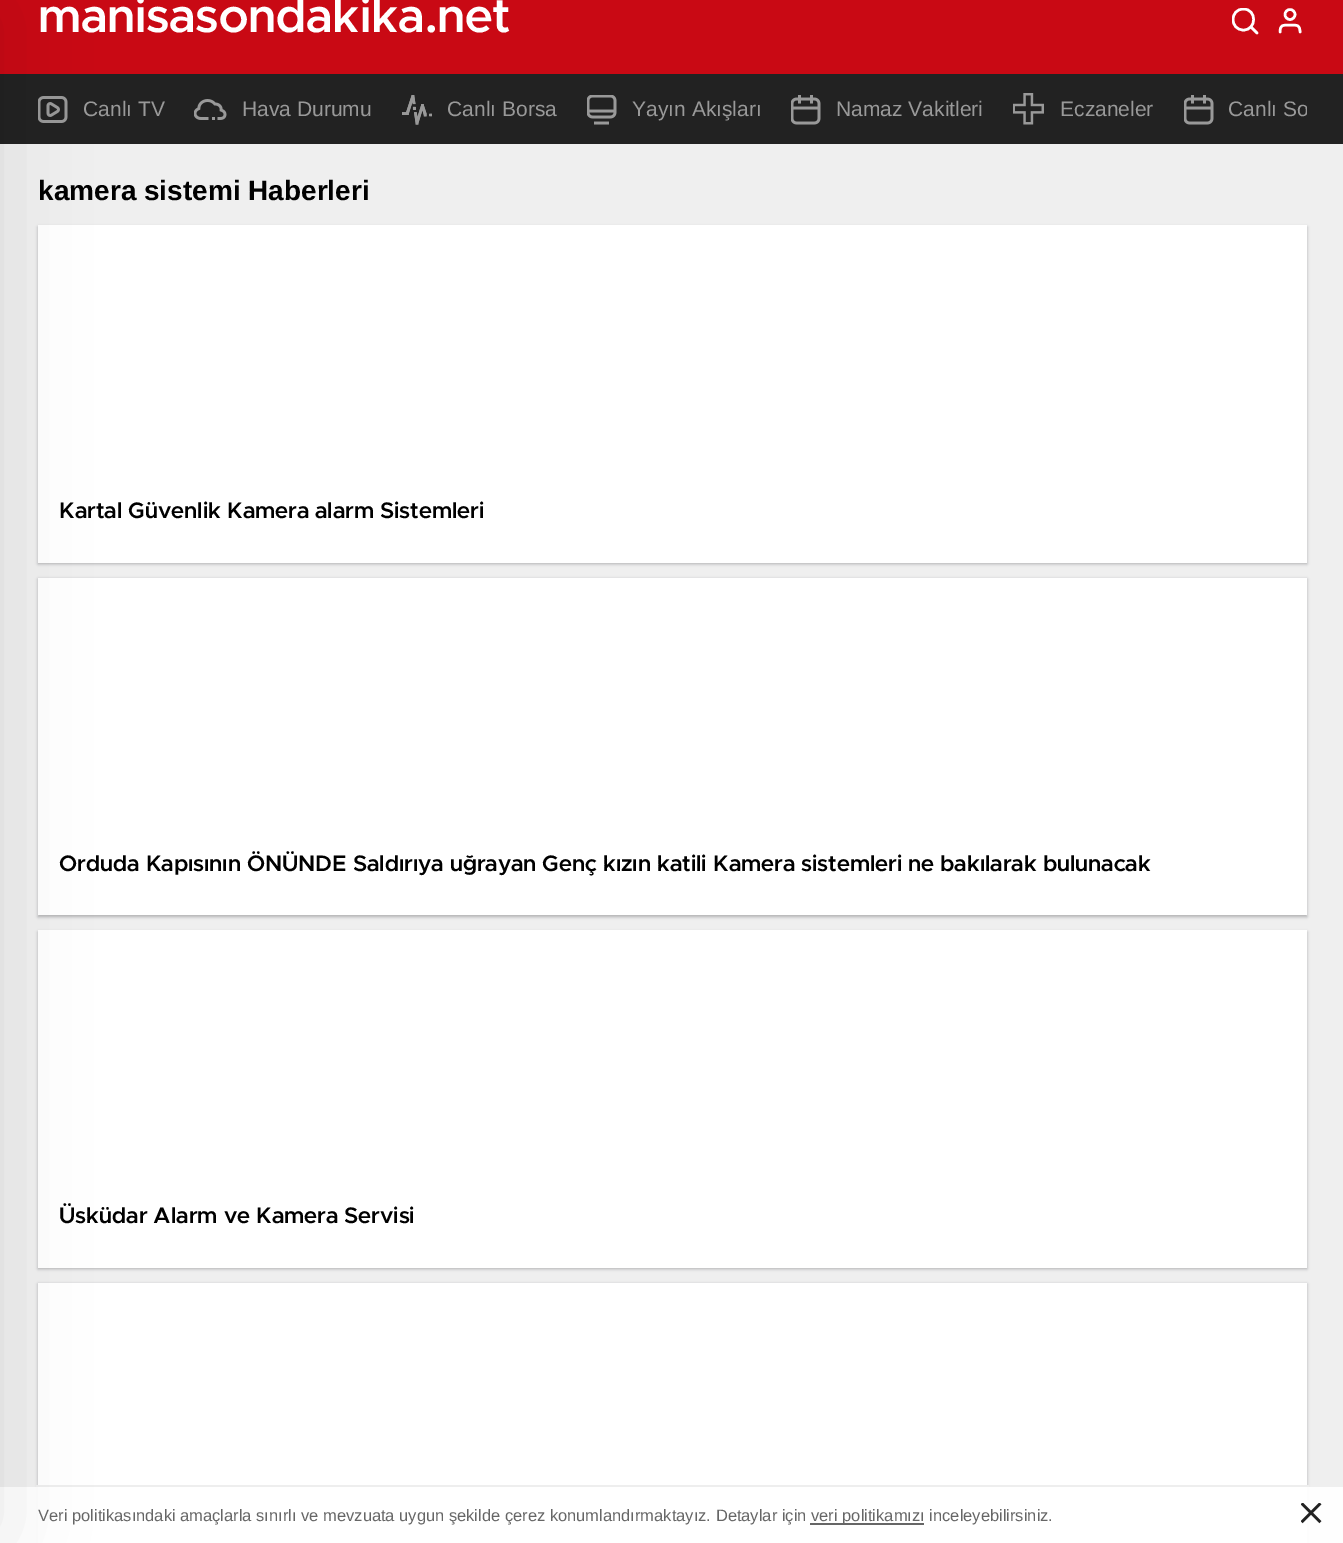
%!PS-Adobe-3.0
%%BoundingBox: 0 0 1343 1543
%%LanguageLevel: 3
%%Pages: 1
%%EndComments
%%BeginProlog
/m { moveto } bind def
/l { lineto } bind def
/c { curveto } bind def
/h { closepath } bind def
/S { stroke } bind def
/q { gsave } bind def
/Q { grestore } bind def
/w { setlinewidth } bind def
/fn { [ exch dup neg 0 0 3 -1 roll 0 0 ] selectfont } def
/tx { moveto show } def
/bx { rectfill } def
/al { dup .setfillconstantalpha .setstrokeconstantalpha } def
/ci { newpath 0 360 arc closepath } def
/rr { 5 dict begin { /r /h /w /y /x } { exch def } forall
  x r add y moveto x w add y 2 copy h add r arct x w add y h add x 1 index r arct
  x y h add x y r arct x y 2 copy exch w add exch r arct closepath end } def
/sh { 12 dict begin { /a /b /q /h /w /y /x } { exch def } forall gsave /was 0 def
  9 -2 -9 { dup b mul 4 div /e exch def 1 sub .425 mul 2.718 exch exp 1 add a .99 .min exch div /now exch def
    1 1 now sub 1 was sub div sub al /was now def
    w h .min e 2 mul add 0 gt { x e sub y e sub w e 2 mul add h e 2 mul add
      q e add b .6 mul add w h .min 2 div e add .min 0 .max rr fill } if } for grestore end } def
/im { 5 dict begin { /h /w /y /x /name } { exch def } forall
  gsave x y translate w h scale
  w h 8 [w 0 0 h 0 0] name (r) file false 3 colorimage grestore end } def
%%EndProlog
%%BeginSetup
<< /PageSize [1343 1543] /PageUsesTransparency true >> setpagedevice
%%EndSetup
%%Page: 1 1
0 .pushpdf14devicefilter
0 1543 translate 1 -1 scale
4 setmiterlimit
0.937 setgray
0 0 1343 1543 bx
0.788 0.035 0.078 setrgbcolor
0 0 1343 74 bx
0.133 setgray
0 74 1343 70 bx
(image0.raw) 38 96 30 27 im
0.067 0.082 0.098 setrgbcolor
38 227 1269 337 0 1.5 0.27 sh
1 setgray
38 225 1269 338 bx
0.067 0.082 0.098 setrgbcolor
38 579 1269 338 0 1.5 0.27 sh
1 setgray
38 578 1269 337 bx
0.067 0.082 0.098 setrgbcolor
38 932 1269 337 0 1.5 0.27 sh
1 setgray
38 930 1269 338 bx
0.067 0.082 0.098 setrgbcolor
38 1284 1269 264 0 1.5 0.27 sh
1 setgray
38 1283 1269 260 bx
0.94 al
0 1487 1343 56 bx
1 al
0.933 setgray
36 1485 1273 2 bx
0 setgray
-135 8 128 1528 0 45 0.1 sh
/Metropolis-SemiBold 48 fn
1 setgray
(manisasondakika.net) 38 32 tx
q
1232 8 27 27 rectclip
2.5 w
1 setlinecap
1 setlinejoin
1243.5 30 m 1257 30 1257 9 1243.5 9 c 1229.5 9 1229.5 30 1243.5 30 c h S
Q
2.5 w
1 setlinecap
1 setlinejoin
1251 27 m 1257 33 l 1300 32 m 1300 24.5 1297 25 1290 25 c 1283 25 1280 24.5 1280 32 c S
0 setlinecap
0 setlinejoin
1290 14.5 5 ci S
/LiberationSans-Regular 21 fn
0.6 setgray
(Canlı TV) 83 116 tx
(image1.raw) 194 99 33 21 im
(Hava Durumu) 242 116 tx
(image2.raw) 402 95 30 30 im
(Canlı Borsa) 447 116 tx
(image3.raw) 587 95 30 30 im
(Yayın Akışları) 632 116 tx
(image4.raw) 791 95 30 30 im
(Namaz Vakitleri) 836 116 tx
(image5.raw) 1013 93 31 32 im
(Eczaneler) 1060 116 tx
(image4.raw) 1184 95 30 30 im
q
38 74 1269 70 rectclip
(Canlı So) 1228 116 tx
Q
/LiberationSans-Bold 28 fn
0 setgray
(kamera sistemi Haberleri) 38 200 tx
/Metropolis-SemiBold 22.5 fn
(Kartal Güvenlik Kamera alarm Sistemleri) 59 518 tx
(Orduda Kapısının ÖNÜNDE Saldırıya uğrayan Genç kızın katili Kamera sistemleri ne bakılarak bulunacak) 59 871 tx
(Üsküdar Alarm ve Kamera Servisi) 59 1223 tx
/LiberationSans-Regular 16.5 fn
0.4 setgray
(Veri politikasındaki amaçlarla sınırlı ve mevzuata uygun şekilde çerez konumlandırmaktayız. Detaylar için) 38 1521 tx
810 1523 114 2 bx
(veri politikamızı inceleyebilirsiniz.) 811 1521 tx
(image6.raw) 1301 1503 21 21 im
.poppdf14devicefilter showpage
%%EOF
